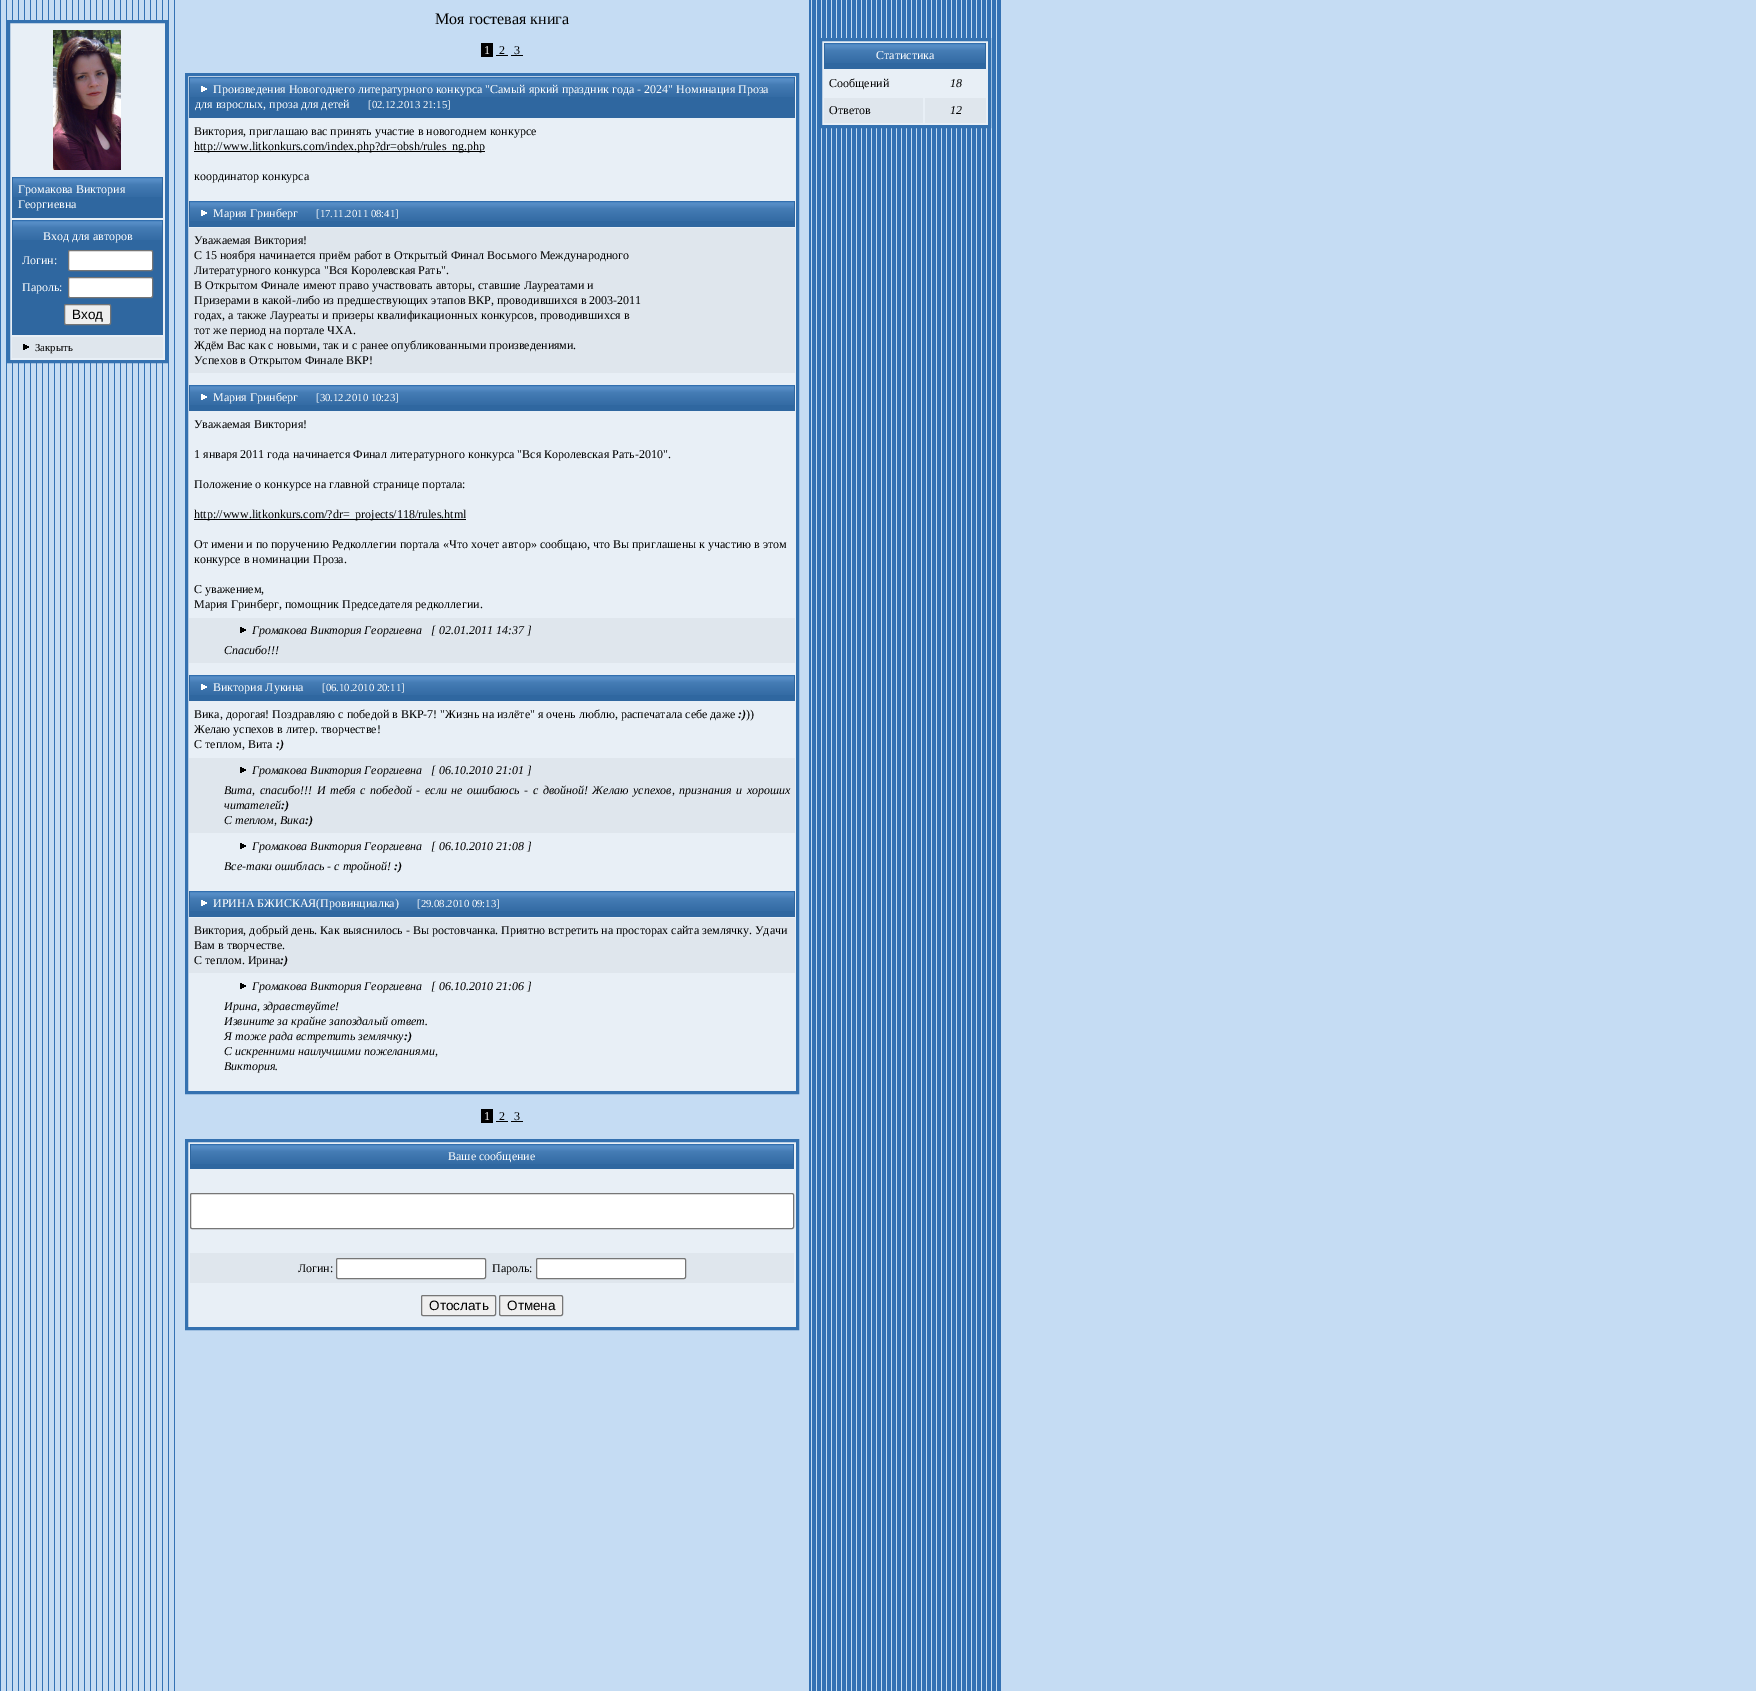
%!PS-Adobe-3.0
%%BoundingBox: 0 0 1756 1691
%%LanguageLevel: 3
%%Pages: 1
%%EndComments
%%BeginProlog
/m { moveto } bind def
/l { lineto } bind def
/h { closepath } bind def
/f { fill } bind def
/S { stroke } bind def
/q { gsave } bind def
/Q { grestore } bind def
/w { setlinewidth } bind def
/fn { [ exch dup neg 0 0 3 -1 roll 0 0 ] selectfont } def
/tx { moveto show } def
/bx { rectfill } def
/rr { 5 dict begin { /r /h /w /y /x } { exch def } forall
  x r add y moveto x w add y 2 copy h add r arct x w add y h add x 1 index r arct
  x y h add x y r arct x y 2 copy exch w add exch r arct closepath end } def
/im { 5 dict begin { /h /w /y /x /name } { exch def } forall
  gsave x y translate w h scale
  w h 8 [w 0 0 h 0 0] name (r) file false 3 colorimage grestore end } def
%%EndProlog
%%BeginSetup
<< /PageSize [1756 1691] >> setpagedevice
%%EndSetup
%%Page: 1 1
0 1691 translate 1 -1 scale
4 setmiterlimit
0.773 0.863 0.953 setrgbcolor
0 0 1756 1691 bx
(image0.raw) 0 0 1001 1691 im
/LiberationSerif-Regular 16 fn
0 setgray
(Моя гостевая книга) 435 24 tx
481 43 12 14 bx
/LiberationSerif-Regular 12 fn
1 setgray
(1) 484 54 tx
0 setgray
(2) 499 54 tx
496 55 12 1 bx
(3) 514 54 tx
511 55 12 1 bx
0.91 0.937 0.965 setrgbcolor
186.5 74.5 m 797.5 74.5 l 797.5 1092.5 l 186.5 1092.5 l h q f Q
0.204 0.443 0.69 setrgbcolor
3 w
S
0.184 0.404 0.627 setrgbcolor
190 97 604 21 bx
(image1.raw) 190 77 604 20 im
794 77 1 41 bx
189 77 1 41 bx
(image2.raw) 201 86 6 6 im
1 setgray
(Произведения Новогоднего литературного конкурса "Самый яркий праздник года - 2024" Номинация Проза) 213 93 tx
(для взрослых, проза для детей) 195 108 tx
/LiberationSerif-Regular 10.75 fn
([02.12.2013 21:15]) 368 108 tx
/LiberationSerif-Regular 12 fn
0 setgray
(Виктория, приглашаю вас принять участие в новогоднем конкурсе) 194 135 tx
194 151 291 1 bx
(http://www.litkonkurs.com/index.php?dr=obsh/rules_ng.php) 194 150 tx
(координатор конкурса) 194 180 tx
0.184 0.404 0.627 setrgbcolor
190 221 604 6 bx
(image1.raw) 190 201 604 20 im
794 201 1 26 bx
189 201 1 26 bx
(image2.raw) 201 210 6 6 im
1 setgray
(Мария Гринберг) 213 217 tx
/LiberationSerif-Regular 10.75 fn
([17.11.2011 08:41]) 316 217 tx
0.875 0.902 0.929 setrgbcolor
189 228 606 145 bx
/LiberationSerif-Regular 12 fn
0 setgray
(Уважаемая Виктория!) 194 244 tx
(С 15 ноября начинается приём работ в Открытый Финал Восьмого Международного) 194 259 tx
(Литературного конкурса "Вся Королевская Рать".) 194 274 tx
(В Открытом Финале имеют право участвовать авторы, ставшие Лауреатами и) 194 289 tx
(Призерами в какой-либо из предшествующих этапов ВКР, проводившихся в 2003-2011) 194 304 tx
(годах, а также Лауреаты и призеры квалификационных конкурсов, проводившихся в) 194 319 tx
(тот же период на портале ЧХА.) 194 334 tx
(Ждём Вас как с новыми, так и с ранее опубликованными произведениями.) 194 349 tx
(Успехов в Открытом Финале ВКР!) 194 364 tx
0.184 0.404 0.627 setrgbcolor
190 405 604 6 bx
(image1.raw) 190 385 604 20 im
794 385 1 26 bx
189 385 1 26 bx
(image2.raw) 201 394 6 6 im
1 setgray
(Мария Гринберг) 213 401 tx
/LiberationSerif-Regular 10.75 fn
([30.12.2010 10:23]) 316 401 tx
/LiberationSerif-Regular 12 fn
0 setgray
(Уважаемая Виктория!) 194 428 tx
(1 января 2011 года начинается Финал литературного конкурса "Вся Королевская Рать-2010".) 194 458 tx
(Положение о конкурсе на главной странице портала:) 194 488 tx
194 519 272 1 bx
(http://www.litkonkurs.com/?dr=_projects/118/rules.html) 194 518 tx
(От имени и по поручению Редколлегии портала «Что хочет автор» сообщаю, что Вы приглашены к участию в этом) 194 548 tx
(конкурсе в номинации Проза.) 194 563 tx
(С уважением,) 194 593 tx
(Мария Гринберг, помощник Председателя редколлегии.) 194 608 tx
0.875 0.902 0.929 setrgbcolor
189 618 606 45 bx
(image3.raw) 240 627 6 6 im
/LiberationSerif-Italic 12 fn
0 setgray
(Громакова Виктория Георгиевна) 252 634 tx
([ 02.01.2011 14:37 ]) 431 634 tx
(Спасибо!!!) 224 654 tx
0.184 0.404 0.627 setrgbcolor
190 695 604 6 bx
(image1.raw) 190 675 604 20 im
794 675 1 26 bx
189 675 1 26 bx
(image2.raw) 201 684 6 6 im
/LiberationSerif-Regular 12 fn
1 setgray
(Виктория Лукина) 213 691 tx
/LiberationSerif-Regular 10.75 fn
([06.10.2010 20:11]) 322 691 tx
/LiberationSerif-Regular 12 fn
0 setgray
(Вика, дорогая! Поздравляю с победой в ВКР-7! "Жизнь на излёте" я очень люблю, распечатала себе даже) 194 718 tx
/LiberationSerif-BoldItalic 12 fn
(:\)) 738 718 tx
/LiberationSerif-Regular 12 fn
(\)\)) 746 718 tx
(Желаю успехов в литер. творчестве!) 194 733 tx
(С теплом, Вита) 194 748 tx
/LiberationSerif-BoldItalic 12 fn
(:\)) 276 748 tx
0.875 0.902 0.929 setrgbcolor
189 758 606 75 bx
(image3.raw) 240 767 6 6 im
/LiberationSerif-Italic 12 fn
0 setgray
(Громакова Виктория Георгиевна) 252 774 tx
([ 06.10.2010 21:01 ]) 431 774 tx
224 794 m 1.6 0 32 (Вита, спасибо!!! И тебя с победой - если не ошибаюсь - с двойной! Желаю успехов, признания и хороших) widthshow
(читателей) 224 809 tx
/LiberationSerif-BoldItalic 12 fn
(:\)) 281 809 tx
/LiberationSerif-Italic 12 fn
(С теплом, Вика) 224 824 tx
/LiberationSerif-BoldItalic 12 fn
(:\)) 305 824 tx
(image4.raw) 240 843 6 6 im
/LiberationSerif-Italic 12 fn
(Громакова Виктория Георгиевна) 252 850 tx
([ 06.10.2010 21:08 ]) 431 850 tx
(Все-таки ошиблась - с тройной!) 224 870 tx
/LiberationSerif-BoldItalic 12 fn
(:\)) 394 870 tx
0.184 0.404 0.627 setrgbcolor
190 911 604 6 bx
(image1.raw) 190 891 604 20 im
794 891 1 26 bx
189 891 1 26 bx
(image2.raw) 201 900 6 6 im
/LiberationSerif-Regular 12 fn
1 setgray
(ИРИНА БЖИСКАЯ\(Провинциалка\)) 213 907 tx
/LiberationSerif-Regular 10.75 fn
([29.08.2010 09:13]) 417 907 tx
0.875 0.902 0.929 setrgbcolor
189 918 606 55 bx
/LiberationSerif-Regular 12 fn
0 setgray
(Виктория, добрый день. Как выяснилось - Вы ростовчанка. Приятно встретить на просторах сайта землячку. Удачи) 194 934 tx
(Вам в творчестве.) 194 949 tx
(С теплом. Ирина) 194 964 tx
/LiberationSerif-BoldItalic 12 fn
(:\)) 280 964 tx
(image4.raw) 240 983 6 6 im
/LiberationSerif-Italic 12 fn
(Громакова Виктория Георгиевна) 252 990 tx
([ 06.10.2010 21:06 ]) 431 990 tx
(Ирина, здравствуйте!) 224 1010 tx
(Извините за крайне запоздалый ответ.) 224 1025 tx
(Я тоже рада встретить землячку) 224 1040 tx
/LiberationSerif-BoldItalic 12 fn
(:\)) 404 1040 tx
/LiberationSerif-Italic 12 fn
(С искренними наилучшими пожеланиями,) 224 1055 tx
(Виктория.) 224 1070 tx
481 1109 12 14 bx
/LiberationSerif-Regular 12 fn
1 setgray
(1) 484 1120 tx
0 setgray
(2) 499 1120 tx
496 1121 12 1 bx
(3) 514 1120 tx
511 1121 12 1 bx
0.91 0.937 0.965 setrgbcolor
186.5 1140.5 m 797.5 1140.5 l 797.5 1328.5 l 186.5 1328.5 l h q f Q
0.204 0.443 0.69 setrgbcolor
S
0.184 0.404 0.627 setrgbcolor
191 1164 602 5 bx
(image5.raw) 191 1144 602 20 im
793 1144 1 25 bx
190 1144 1 25 bx
1 setgray
(Ваше сообщение) 448 1160 tx
190.5 1193.5 603 35 1.5 rr q f Q
0.463 setgray
1 w
S
0.875 0.902 0.929 setrgbcolor
190 1253 604 30 bx
0 setgray
(Логин:) 298 1272 tx
1 setgray
336.5 1258.5 149 20 1.5 rr q f Q
0.463 setgray
S
0 setgray
(Пароль:) 492 1272 tx
1 setgray
536.5 1258.5 149 20 1.5 rr q f Q
0.463 setgray
S
0.937 setgray
421.5 1295.5 74 20 1.5 rr q f Q
0.463 setgray
S
/LiberationSans-Regular 13.5 fn
0 setgray
(Отослать) 429 1310 tx
0.937 setgray
499.5 1295.5 63 20 1.5 rr q f Q
0.463 setgray
S
0 setgray
(Отмена) 507 1310 tx
0.91 0.937 0.965 setrgbcolor
820.5 39.5 m 989.5 39.5 l 989.5 126.5 l 820.5 126.5 l h q f Q
0.204 0.443 0.69 setrgbcolor
3 w
S
0.184 0.404 0.627 setrgbcolor
825 63 160 6 bx
(image6.raw) 825 43 160 20 im
985 43 1 26 bx
824 43 1 26 bx
/LiberationSerif-Regular 12 fn
1 setgray
(Статистика) 876 59 tx
0 setgray
(Сообщений) 829 87 tx
/LiberationSerif-Italic 12 fn
(18) 950 87 tx
0.875 0.902 0.929 setrgbcolor
824 98 99 25 bx
/LiberationSerif-Regular 12 fn
0 setgray
(Ответов) 829 114 tx
0.875 0.902 0.929 setrgbcolor
925 98 61 25 bx
/LiberationSerif-Italic 12 fn
0 setgray
(12) 950 114 tx
0.91 0.937 0.965 setrgbcolor
8.5 21.5 m 166.5 21.5 l 166.5 361.5 l 8.5 361.5 l h q f Q
0.204 0.443 0.69 setrgbcolor
S
(image7.raw) 53 30 68 140 im
0.184 0.404 0.627 setrgbcolor
13 197 149 21 bx
(image8.raw) 13 177 149 20 im
162 177 1 41 bx
12 177 1 41 bx
/LiberationSerif-Regular 12 fn
1 setgray
(Громакова Виктория) 18 193 tx
(Георгиевна) 18 208 tx
0.184 0.404 0.627 setrgbcolor
13 240 149 95 bx
(image8.raw) 13 220 149 20 im
162 220 1 115 bx
12 220 1 115 bx
1 setgray
(Вход для авторов) 43 240 tx
(Логин:) 22 264 tx
68.5 250.5 84 20 1.5 rr q f Q
0.463 setgray
1 w
S
1 setgray
(Пароль:) 22 291 tx
68.5 277.5 84 20 1.5 rr q f Q
0.463 setgray
S
0.937 setgray
64.5 304.5 46 20 1.5 rr q f Q
0.463 setgray
S
/LiberationSans-Regular 13.5 fn
0 setgray
(Вход) 72 319 tx
0.875 0.902 0.929 setrgbcolor
12 337 151 21 bx
(image3.raw) 23 344 6 6 im
/LiberationSerif-Regular 10.75 fn
0 setgray
(Закрыть) 35 351 tx
showpage
%%EOF
